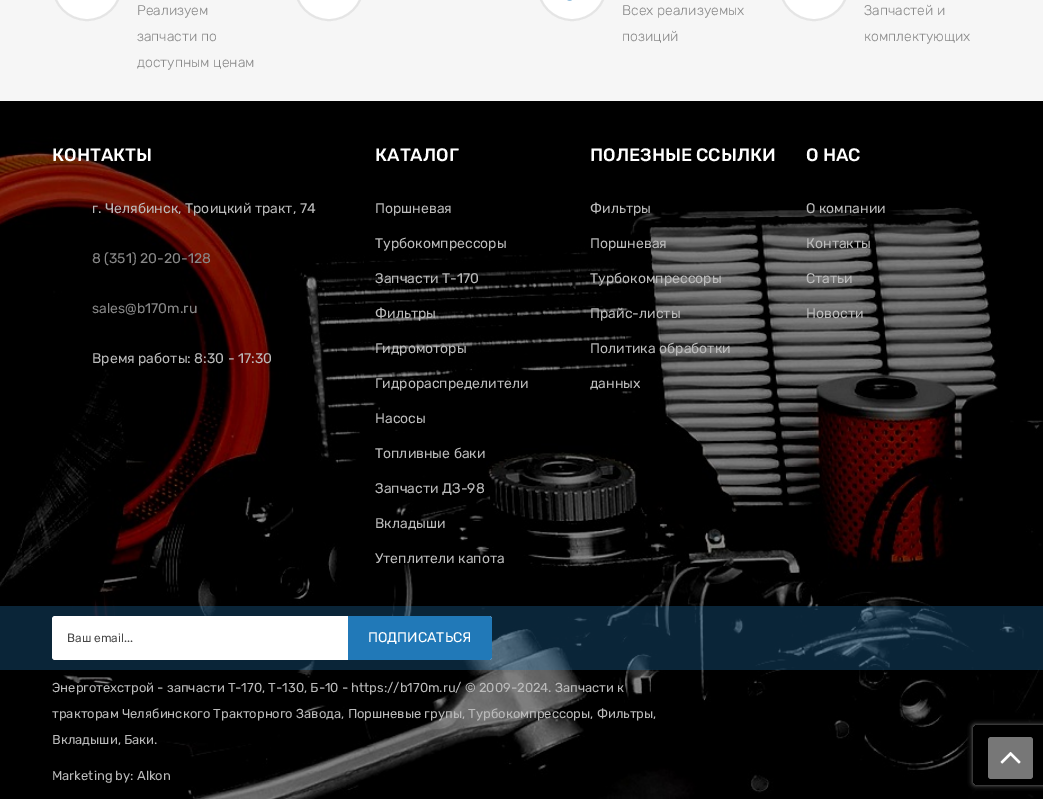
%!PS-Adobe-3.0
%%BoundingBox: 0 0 1043 799
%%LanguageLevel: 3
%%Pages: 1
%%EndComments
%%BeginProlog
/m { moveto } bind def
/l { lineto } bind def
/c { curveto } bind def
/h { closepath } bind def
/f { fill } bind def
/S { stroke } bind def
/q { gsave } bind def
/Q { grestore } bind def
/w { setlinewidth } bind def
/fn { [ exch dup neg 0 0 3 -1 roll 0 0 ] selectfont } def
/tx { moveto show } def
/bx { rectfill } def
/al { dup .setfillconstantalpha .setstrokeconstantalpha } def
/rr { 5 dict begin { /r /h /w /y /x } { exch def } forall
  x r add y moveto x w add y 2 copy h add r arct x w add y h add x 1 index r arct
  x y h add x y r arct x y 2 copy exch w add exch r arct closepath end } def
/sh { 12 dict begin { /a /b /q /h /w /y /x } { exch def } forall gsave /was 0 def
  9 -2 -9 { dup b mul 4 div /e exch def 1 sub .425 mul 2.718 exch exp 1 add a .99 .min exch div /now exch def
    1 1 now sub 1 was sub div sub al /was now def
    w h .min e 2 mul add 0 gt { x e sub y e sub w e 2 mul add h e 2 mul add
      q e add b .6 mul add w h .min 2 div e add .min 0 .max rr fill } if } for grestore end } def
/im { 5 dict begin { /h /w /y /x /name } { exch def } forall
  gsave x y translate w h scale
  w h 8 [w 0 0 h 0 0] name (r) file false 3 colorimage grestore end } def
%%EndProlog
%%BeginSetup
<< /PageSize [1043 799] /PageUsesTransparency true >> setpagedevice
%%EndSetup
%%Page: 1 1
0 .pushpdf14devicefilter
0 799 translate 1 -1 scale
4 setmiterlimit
0.965 setgray
0 0 1043 799 bx
1 setgray
53 -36 68 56 34 rr q f Q
0.898 setgray
2 w
S
/Rubik-Light 14 fn
0.533 setgray
(Реализуем) 137 15 tx
(запчасти по) 137 41 tx
(доступным ценам) 137 67 tx
1 setgray
295 -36 68 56 34 rr q f Q
0.898 setgray
S
1 setgray
538 -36 68 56 34 rr q f Q
0.898 setgray
S
(image0.raw) 567 0 5 1 im
0.533 setgray
(Всех реализуемых) 622 15 tx
(позиций) 622 41 tx
1 setgray
780 -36 68 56 34 rr q f Q
0.898 setgray
S
0.533 setgray
(Запчастей и) 864 15 tx
(комплектующих) 864 41 tx
(image1.raw) 0 101 1043 698 im
/Rubik-Medium 18 fn
1 setgray
(КОНТАКТЫ) 52 161 tx
/Rubik-Regular 14 fn
0.733 setgray
(г. Челябинск, Троицкий тракт, 74) 92 213 tx
0.533 setgray
(8 \(351\) 20-20-128) 92 263 tx
(sales@b170m.ru) 92 313 tx
0.733 setgray
(Время работы: 8:30 - 17:30) 92 363 tx
/Rubik-Medium 18 fn
1 setgray
(КАТАЛОГ) 375 161 tx
/Rubik-Regular 14 fn
0.733 setgray
(Поршневая) 375 213 tx
(Турбокомпрессоры) 375 248 tx
(Запчасти Т-170) 375 283 tx
(Фильтры) 375 318 tx
(Гидромоторы) 375 353 tx
(Гидрораспределители) 375 388 tx
(Насосы) 375 423 tx
(Топливные баки) 375 458 tx
(Запчасти ДЗ-98) 375 493 tx
(Вкладыши) 375 528 tx
(Утеплители капота) 375 563 tx
/Rubik-Medium 18 fn
1 setgray
(ПОЛЕЗНЫЕ ССЫЛКИ) 590 161 tx
/Rubik-Regular 14 fn
0.733 setgray
(Фильтры) 590 213 tx
(Поршневая) 590 248 tx
(Турбокомпрессоры) 590 283 tx
(Прайс-листы) 590 318 tx
(Политика обработки) 590 353 tx
(данных) 590 388 tx
/Rubik-Medium 18 fn
1 setgray
(О НАС) 806 161 tx
/Rubik-Regular 14 fn
0.733 setgray
(О компании) 806 213 tx
(Контакты) 806 248 tx
(Статьи) 806 283 tx
(Новости) 806 318 tx
0.3 al
0.129 0.475 0.722 setrgbcolor
0 606 1043 64 bx
1 al
1 setgray
52 616 440 44 3 rr f
/Rubik-Regular 12 fn
0.282 setgray
(Ваш email...) 67 642 tx
0.129 0.475 0.722 setrgbcolor
348 616 m 489 616 l 490.5 616 492 617.5 492 619 c 492 657 l 492 658.5 490.5 660 489 660 c 348 660 l h f
/Rubik-Regular 14 fn
1 setgray
(ПОДПИСАТЬСЯ) 368 642 tx
/Rubik-Regular 13 fn
0.733 setgray
(Энерготехстрой - запчасти Т-170, Т-130, Б-10 - https://b170m.ru/ © 2009-2024. Запчасти к) 52 692 tx
(тракторам Челябинского Тракторного Завода, Поршневые групы, Турбокомпрессоры, Фильтры,) 52 718 tx
(Вкладыши, Баки.) 52 744 tx
(Marketing by: Alkon) 52 780 tx
q
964 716 m 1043 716 l 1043 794 l 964 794 l h 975 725 m 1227 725 l 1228 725 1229 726 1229 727 c 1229 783 l 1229 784 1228 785 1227 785 c 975 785 l 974 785 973 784 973 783 c 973 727 l 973 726 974 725 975 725 c h eoclip newpath
0.502 setgray
973 725 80 60 2 2.5 1 sh
Q
0.467 setgray
988 737 45 42 3 rr f
(image2.raw) 1000 752 21 12 im
.poppdf14devicefilter showpage
%%EOF
